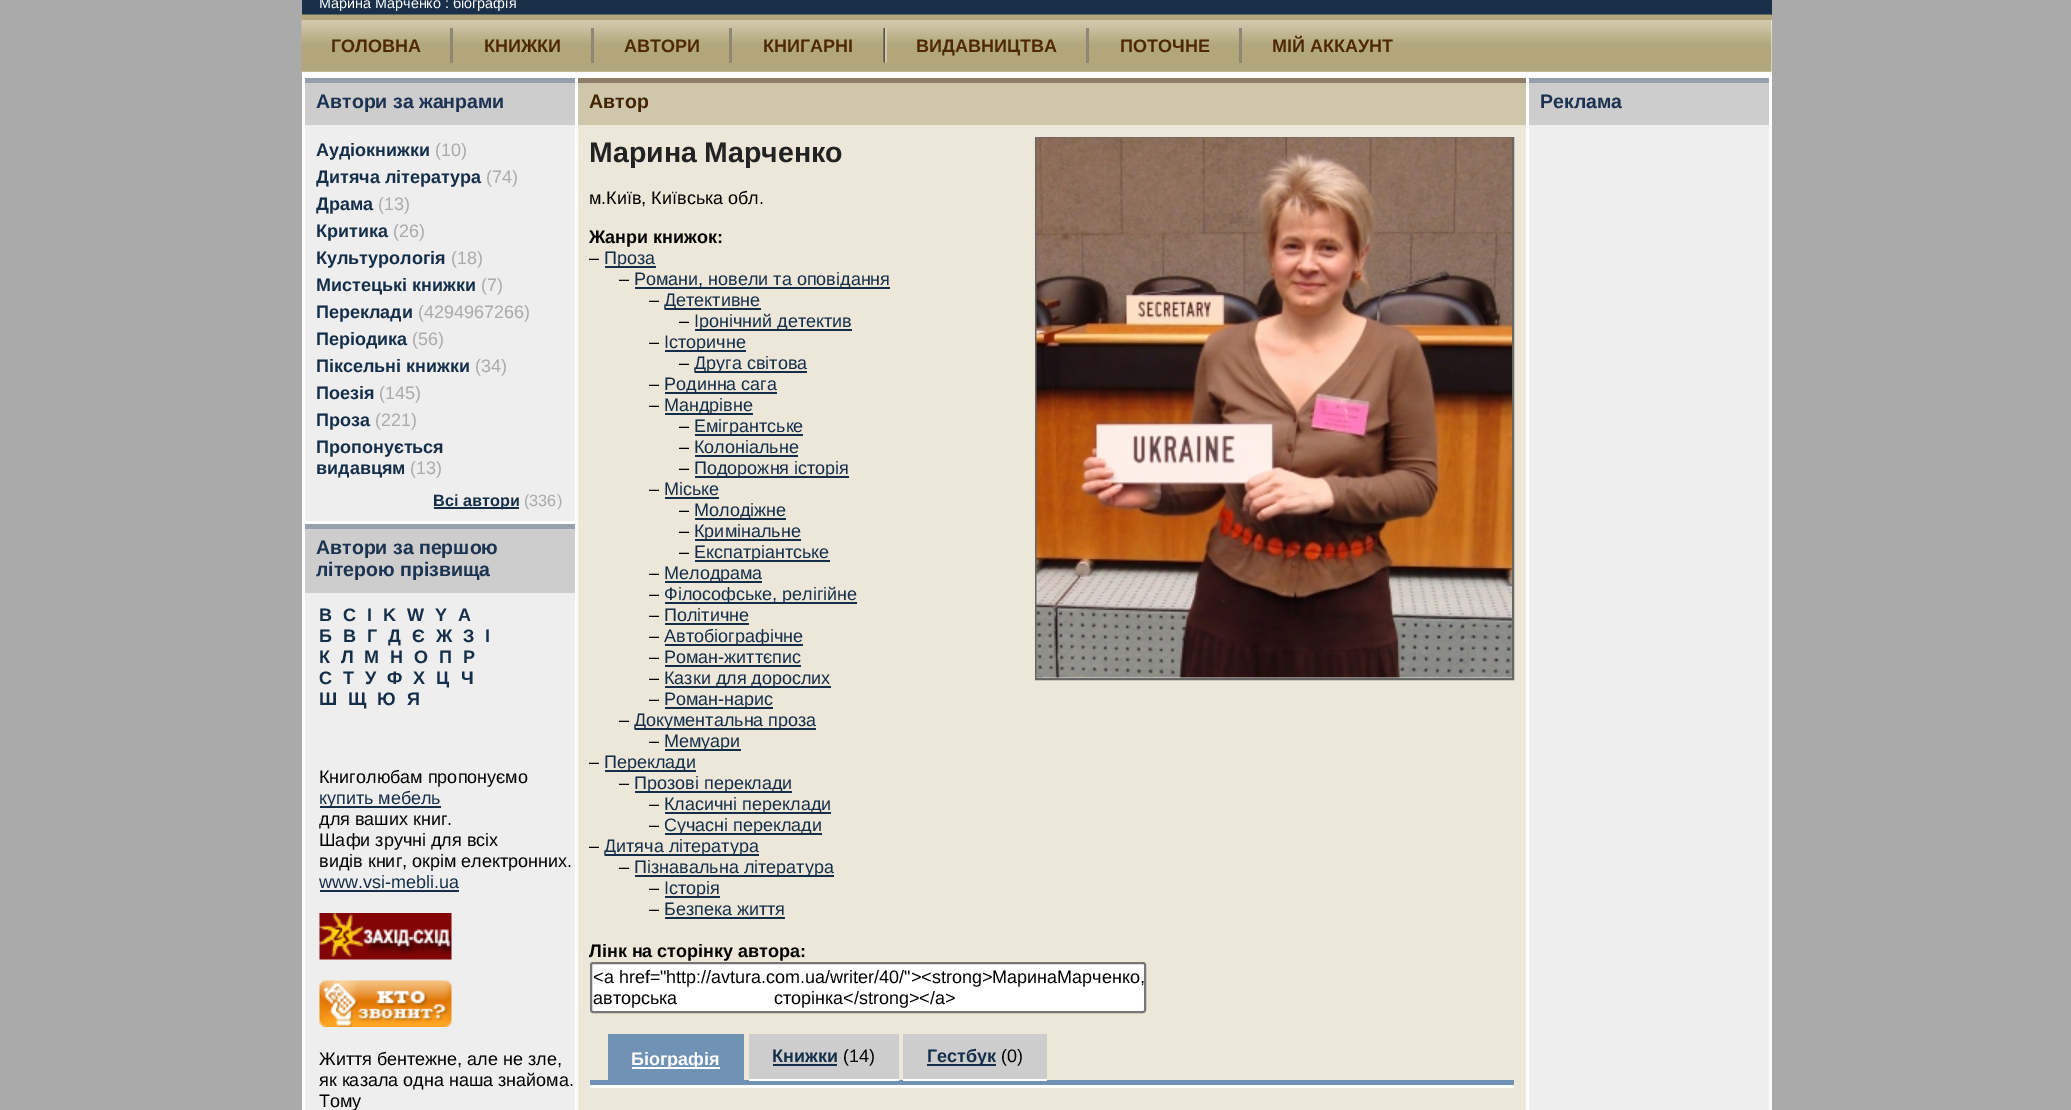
%!PS-Adobe-3.0
%%BoundingBox: 0 0 2071 1110
%%LanguageLevel: 3
%%Pages: 1
%%EndComments
%%BeginProlog
/m { moveto } bind def
/f { fill } bind def
/S { stroke } bind def
/q { gsave } bind def
/Q { grestore } bind def
/w { setlinewidth } bind def
/fn { [ exch dup neg 0 0 3 -1 roll 0 0 ] selectfont } def
/tx { moveto show } def
/bx { rectfill } def
/rr { 5 dict begin { /r /h /w /y /x } { exch def } forall
  x r add y moveto x w add y 2 copy h add r arct x w add y h add x 1 index r arct
  x y h add x y r arct x y 2 copy exch w add exch r arct closepath end } def
/im { 5 dict begin { /h /w /y /x /name } { exch def } forall
  gsave x y translate w h scale
  w h 8 [w 0 0 h 0 0] name (r) file false 3 colorimage grestore end } def
%%EndProlog
%%BeginSetup
<< /PageSize [2071 1110] >> setpagedevice
%%EndSetup
%%Page: 1 1
0 1110 translate 1 -1 scale
4 setmiterlimit
0.667 setgray
0 0 2071 1110 bx
1 setgray
302 20 1470 1090 bx
0.102 0.184 0.29 setrgbcolor
302 0 1470 15 bx
/LiberationSans-Regular 14.4 fn
1 setgray
(Марина Марченко : біографія) 319 8 tx
(image0.raw) 301 14 1471 61 im
0.706 0.655 0.49 setrgbcolor
302 15 1470 5 bx
1 setgray
302 72 1470 3 bx
/LiberationSans-Bold 18 fn
0.306 0.157 0.016 setrgbcolor
(ГОЛОВНА) 331 52 tx
0.565 0.525 0.463 setrgbcolor
450 28 3 35 bx
0.306 0.157 0.016 setrgbcolor
(КНИЖКИ) 484 52 tx
0.565 0.525 0.463 setrgbcolor
591 28 3 35 bx
0.306 0.157 0.016 setrgbcolor
(АВТОРИ) 624 52 tx
0.565 0.525 0.463 setrgbcolor
729 28 3 35 bx
0.306 0.157 0.016 setrgbcolor
(КНИГАРНІ) 763 52 tx
(image1.raw) 883 28 4 35 im
(ВИДАВНИЦТВА) 916 52 tx
0.565 0.525 0.463 setrgbcolor
1086 28 3 35 bx
0.306 0.157 0.016 setrgbcolor
(ПОТОЧНЕ) 1120 52 tx
0.565 0.525 0.463 setrgbcolor
1239 28 3 35 bx
0.306 0.157 0.016 setrgbcolor
(МІЙ АККАУНТ) 1272 52 tx
0.933 setgray
305 125 270 985 bx
0.804 setgray
305 83 270 42 bx
0.588 0.627 0.675 setrgbcolor
305 78 270 5 bx
/LiberationSans-Bold 19.5 fn
0.106 0.196 0.318 setrgbcolor
(Автори за жанрами) 316 108 tx
/LiberationSans-Bold 18 fn
0.078 0.18 0.286 setrgbcolor
(Аудіокнижки) 316 156 tx
/LiberationSans-Regular 18 fn
0.667 setgray
(\(10\)) 435 156 tx
/LiberationSans-Bold 18 fn
0.078 0.18 0.286 setrgbcolor
(Дитяча література) 316 183 tx
/LiberationSans-Regular 18 fn
0.667 setgray
(\(74\)) 486 183 tx
/LiberationSans-Bold 18 fn
0.078 0.18 0.286 setrgbcolor
(Драма) 316 210 tx
/LiberationSans-Regular 18 fn
0.667 setgray
(\(13\)) 378 210 tx
/LiberationSans-Bold 18 fn
0.078 0.18 0.286 setrgbcolor
(Критика) 316 237 tx
/LiberationSans-Regular 18 fn
0.667 setgray
(\(26\)) 393 237 tx
/LiberationSans-Bold 18 fn
0.078 0.18 0.286 setrgbcolor
(Культурологія) 316 264 tx
/LiberationSans-Regular 18 fn
0.667 setgray
(\(18\)) 451 264 tx
/LiberationSans-Bold 18 fn
0.078 0.18 0.286 setrgbcolor
(Мистецькі книжки) 316 291 tx
/LiberationSans-Regular 18 fn
0.667 setgray
(\(7\)) 481 291 tx
/LiberationSans-Bold 18 fn
0.078 0.18 0.286 setrgbcolor
(Переклади) 316 318 tx
/LiberationSans-Regular 18 fn
0.667 setgray
(\(4294967266\)) 418 318 tx
/LiberationSans-Bold 18 fn
0.078 0.18 0.286 setrgbcolor
(Періодика) 316 345 tx
/LiberationSans-Regular 18 fn
0.667 setgray
(\(56\)) 412 345 tx
/LiberationSans-Bold 18 fn
0.078 0.18 0.286 setrgbcolor
(Піксельні книжки) 316 372 tx
/LiberationSans-Regular 18 fn
0.667 setgray
(\(34\)) 475 372 tx
/LiberationSans-Bold 18 fn
0.078 0.18 0.286 setrgbcolor
(Поезія) 316 399 tx
/LiberationSans-Regular 18 fn
0.667 setgray
(\(145\)) 379 399 tx
/LiberationSans-Bold 18 fn
0.078 0.18 0.286 setrgbcolor
(Проза) 316 426 tx
/LiberationSans-Regular 18 fn
0.667 setgray
(\(221\)) 375 426 tx
/LiberationSans-Bold 18 fn
0.078 0.18 0.286 setrgbcolor
(Пропонується) 316 453 tx
(видавцям) 316 474 tx
/LiberationSans-Regular 18 fn
0.667 setgray
(\(13\)) 410 474 tx
0.078 0.18 0.286 setrgbcolor
434 507 85 2 bx
/LiberationSans-Bold 16.25 fn
(Всі автори) 433 506 tx
/LiberationSans-Regular 16.25 fn
0.667 setgray
(\(336\)) 524 506 tx
1 setgray
305 521 270 3 bx
0.804 setgray
305 529 270 64 bx
0.588 0.627 0.675 setrgbcolor
305 524 270 5 bx
/LiberationSans-Bold 19.5 fn
0.106 0.196 0.318 setrgbcolor
(Автори за першою) 316 554 tx
(літерою прізвища) 316 576 tx
/LiberationSans-Bold 18 fn
0.078 0.18 0.286 setrgbcolor
(B) 319 621 tx
(C) 343 621 tx
(I) 367 621 tx
(K) 383 621 tx
(W) 407 621 tx
(Y) 435 621 tx
(А) 458 621 tx
(Б) 319 642 tx
(В) 343 642 tx
(Г) 367 642 tx
(Д) 388 642 tx
(Є) 412 642 tx
(Ж) 436 642 tx
(З) 463 642 tx
(І) 485 642 tx
(К) 319 663 tx
(Л) 341 663 tx
(М) 364 663 tx
(Н) 390 663 tx
(О) 414 663 tx
(П) 439 663 tx
(Р) 463 663 tx
(С) 319 684 tx
(Т) 343 684 tx
(У) 365 684 tx
(Ф) 387 684 tx
(Х) 413 684 tx
(Ц) 436 684 tx
(Ч) 461 684 tx
(Ш) 319 705 tx
(Щ) 348 705 tx
(Ю) 377 705 tx
(Я) 407 705 tx
/LiberationSans-Regular 18 fn
0 setgray
(Книголюбам пропонуємо) 319 783 tx
0.078 0.18 0.286 setrgbcolor
320 806 121 2 bx
(купить мебель) 319 804 tx
0 setgray
(для ваших книг.) 319 825 tx
(Шафи зручні для всіх) 319 846 tx
(видів книг, окрім електронних.) 319 867 tx
0.078 0.18 0.286 setrgbcolor
(www.vsi-mebli.ua) 319 888 tx
320 890 139 2 bx
(image2.raw) 319 913 133 47 im
(image3.raw) 319 980 133 47 im
0 setgray
(Життя бентежне, але не зле,) 319 1065 tx
(як казала одна наша знайома.) 319 1086 tx
(Тому) 319 1107 tx
0.808 0.78 0.671 setrgbcolor
578 83 948 42 bx
0.561 0.494 0.416 setrgbcolor
578 78 948 5 bx
/LiberationSans-Bold 19.5 fn
0.267 0.137 0 setrgbcolor
(Автор) 589 108 tx
0.929 0.906 0.851 setrgbcolor
578 125 948 985 bx
/LiberationSans-Bold 28.5 fn
0.133 setgray
(Марина Марченко) 589 162 tx
0.4 setgray
2 w
1036 138 477 541 rectstroke
(image4.raw) 1036 137 476 541 im
/LiberationSans-Regular 18 fn
0 setgray
(м.Київ, Київська обл.) 589 204 tx
/LiberationSans-Bold 18 fn
(Жанри книжок:) 589 243 tx
/LiberationSans-Regular 18 fn
(–) 589 264 tx
0.078 0.18 0.286 setrgbcolor
605 266 51 2 bx
(Проза) 604 264 tx
0 setgray
(–) 619 285 tx
0.078 0.18 0.286 setrgbcolor
635 287 255 2 bx
(Романи, новели та оповідання) 634 285 tx
0 setgray
(–) 649 306 tx
0.078 0.18 0.286 setrgbcolor
665 308 96 2 bx
(Детективне) 664 306 tx
0 setgray
(–) 679 327 tx
0.078 0.18 0.286 setrgbcolor
695 329 157 2 bx
(Іронічний детектив) 694 327 tx
0 setgray
(–) 649 348 tx
0.078 0.18 0.286 setrgbcolor
665 350 81 2 bx
(Історичне) 664 348 tx
0 setgray
(–) 679 369 tx
0.078 0.18 0.286 setrgbcolor
695 371 112 2 bx
(Друга світова) 694 369 tx
0 setgray
(–) 649 390 tx
0.078 0.18 0.286 setrgbcolor
665 392 112 2 bx
(Родинна сага) 664 390 tx
0 setgray
(–) 649 411 tx
0.078 0.18 0.286 setrgbcolor
665 413 88 2 bx
(Мандрівне) 664 411 tx
0 setgray
(–) 679 432 tx
0.078 0.18 0.286 setrgbcolor
695 434 108 2 bx
(Емігрантське) 694 432 tx
0 setgray
(–) 679 453 tx
0.078 0.18 0.286 setrgbcolor
(Колоніальне) 694 453 tx
695 455 103 2 bx
0 setgray
(–) 679 474 tx
0.078 0.18 0.286 setrgbcolor
695 476 154 2 bx
(Подорожня історія) 694 474 tx
0 setgray
(–) 649 495 tx
0.078 0.18 0.286 setrgbcolor
(Міське) 664 495 tx
665 497 54 2 bx
0 setgray
(–) 679 516 tx
0.078 0.18 0.286 setrgbcolor
695 518 91 2 bx
(Молодіжне) 694 516 tx
0 setgray
(–) 679 537 tx
0.078 0.18 0.286 setrgbcolor
695 539 106 2 bx
(Кримінальне) 694 537 tx
0 setgray
(–) 679 558 tx
0.078 0.18 0.286 setrgbcolor
695 560 135 2 bx
(Експатріантське) 694 558 tx
0 setgray
(–) 649 579 tx
0.078 0.18 0.286 setrgbcolor
665 581 97 2 bx
(Мелодрама) 664 579 tx
0 setgray
(–) 649 600 tx
0.078 0.18 0.286 setrgbcolor
665 602 192 2 bx
(Філософське, релігійне) 664 600 tx
0 setgray
(–) 649 621 tx
0.078 0.18 0.286 setrgbcolor
(Політичне) 664 621 tx
665 623 84 2 bx
0 setgray
(–) 649 642 tx
0.078 0.18 0.286 setrgbcolor
665 644 138 2 bx
(Автобіографічне) 664 642 tx
0 setgray
(–) 649 663 tx
0.078 0.18 0.286 setrgbcolor
(Роман-життєпис) 664 663 tx
665 665 136 2 bx
0 setgray
(–) 649 684 tx
0.078 0.18 0.286 setrgbcolor
665 686 166 2 bx
(Казки для дорослих) 664 684 tx
0 setgray
(–) 649 705 tx
0.078 0.18 0.286 setrgbcolor
665 707 108 2 bx
(Роман-нарис) 664 705 tx
0 setgray
(–) 619 726 tx
0.078 0.18 0.286 setrgbcolor
635 728 181 2 bx
(Документальна проза) 634 726 tx
0 setgray
(–) 649 747 tx
0.078 0.18 0.286 setrgbcolor
665 749 76 2 bx
(Мемуари) 664 747 tx
0 setgray
(–) 589 768 tx
0.078 0.18 0.286 setrgbcolor
605 770 91 2 bx
(Переклади) 604 768 tx
0 setgray
(–) 619 789 tx
0.078 0.18 0.286 setrgbcolor
635 791 157 2 bx
(Прозові переклади) 634 789 tx
0 setgray
(–) 649 810 tx
0.078 0.18 0.286 setrgbcolor
665 812 166 2 bx
(Класичні переклади) 664 810 tx
0 setgray
(–) 649 831 tx
0.078 0.18 0.286 setrgbcolor
665 833 157 2 bx
(Сучасні переклади) 664 831 tx
0 setgray
(–) 589 852 tx
0.078 0.18 0.286 setrgbcolor
605 854 154 2 bx
(Дитяча література) 604 852 tx
0 setgray
(–) 619 873 tx
0.078 0.18 0.286 setrgbcolor
635 875 199 2 bx
(Пізнавальна література) 634 873 tx
0 setgray
(–) 649 894 tx
0.078 0.18 0.286 setrgbcolor
665 896 55 2 bx
(Історія) 664 894 tx
0 setgray
(–) 649 915 tx
0.078 0.18 0.286 setrgbcolor
(Безпека життя) 664 915 tx
665 917 120 2 bx
/LiberationSans-Bold 18 fn
0 setgray
(Лінк на сторінку автора:) 589 957 tx
1 setgray
591 963 554 49 2 rr q f Q
0.463 setgray
S
/LiberationSans-Regular 18 fn
0 setgray
(<a href="http://avtura.com.ua/writer/40/"><strong>МаринаМарченко,) 593 983 tx
593 1004 m 92 0 32 (авторська сторінка</strong></a>) widthshow
0.439 0.573 0.706 setrgbcolor
590 1080 924 5 bx
608 1034 136 46 bx
1 setgray
632 1067 88 2 bx
/LiberationSans-Bold 18 fn
(Біографія) 631 1065 tx
0.804 setgray
749 1034 150 45 bx
1 setgray
749 1079 150 2 bx
0.078 0.18 0.286 setrgbcolor
(Книжки) 772 1062 tx
773 1064 64 2 bx
/LiberationSans-Regular 18 fn
0 setgray
(\(14\)) 843 1062 tx
0.804 setgray
903 1034 144 45 bx
1 setgray
903 1079 144 2 bx
0.078 0.18 0.286 setrgbcolor
927 1064 69 2 bx
/LiberationSans-Bold 18 fn
(Гестбук) 927 1062 tx
/LiberationSans-Regular 18 fn
0 setgray
(\(0\)) 1001 1062 tx
1 setgray
590 1085 924 3 bx
0.933 setgray
1529 125 240 985 bx
0.804 setgray
1529 83 240 42 bx
0.588 0.627 0.675 setrgbcolor
1529 78 240 5 bx
/LiberationSans-Bold 19.5 fn
0.106 0.196 0.318 setrgbcolor
(Реклама) 1540 108 tx
showpage
%%EOF
